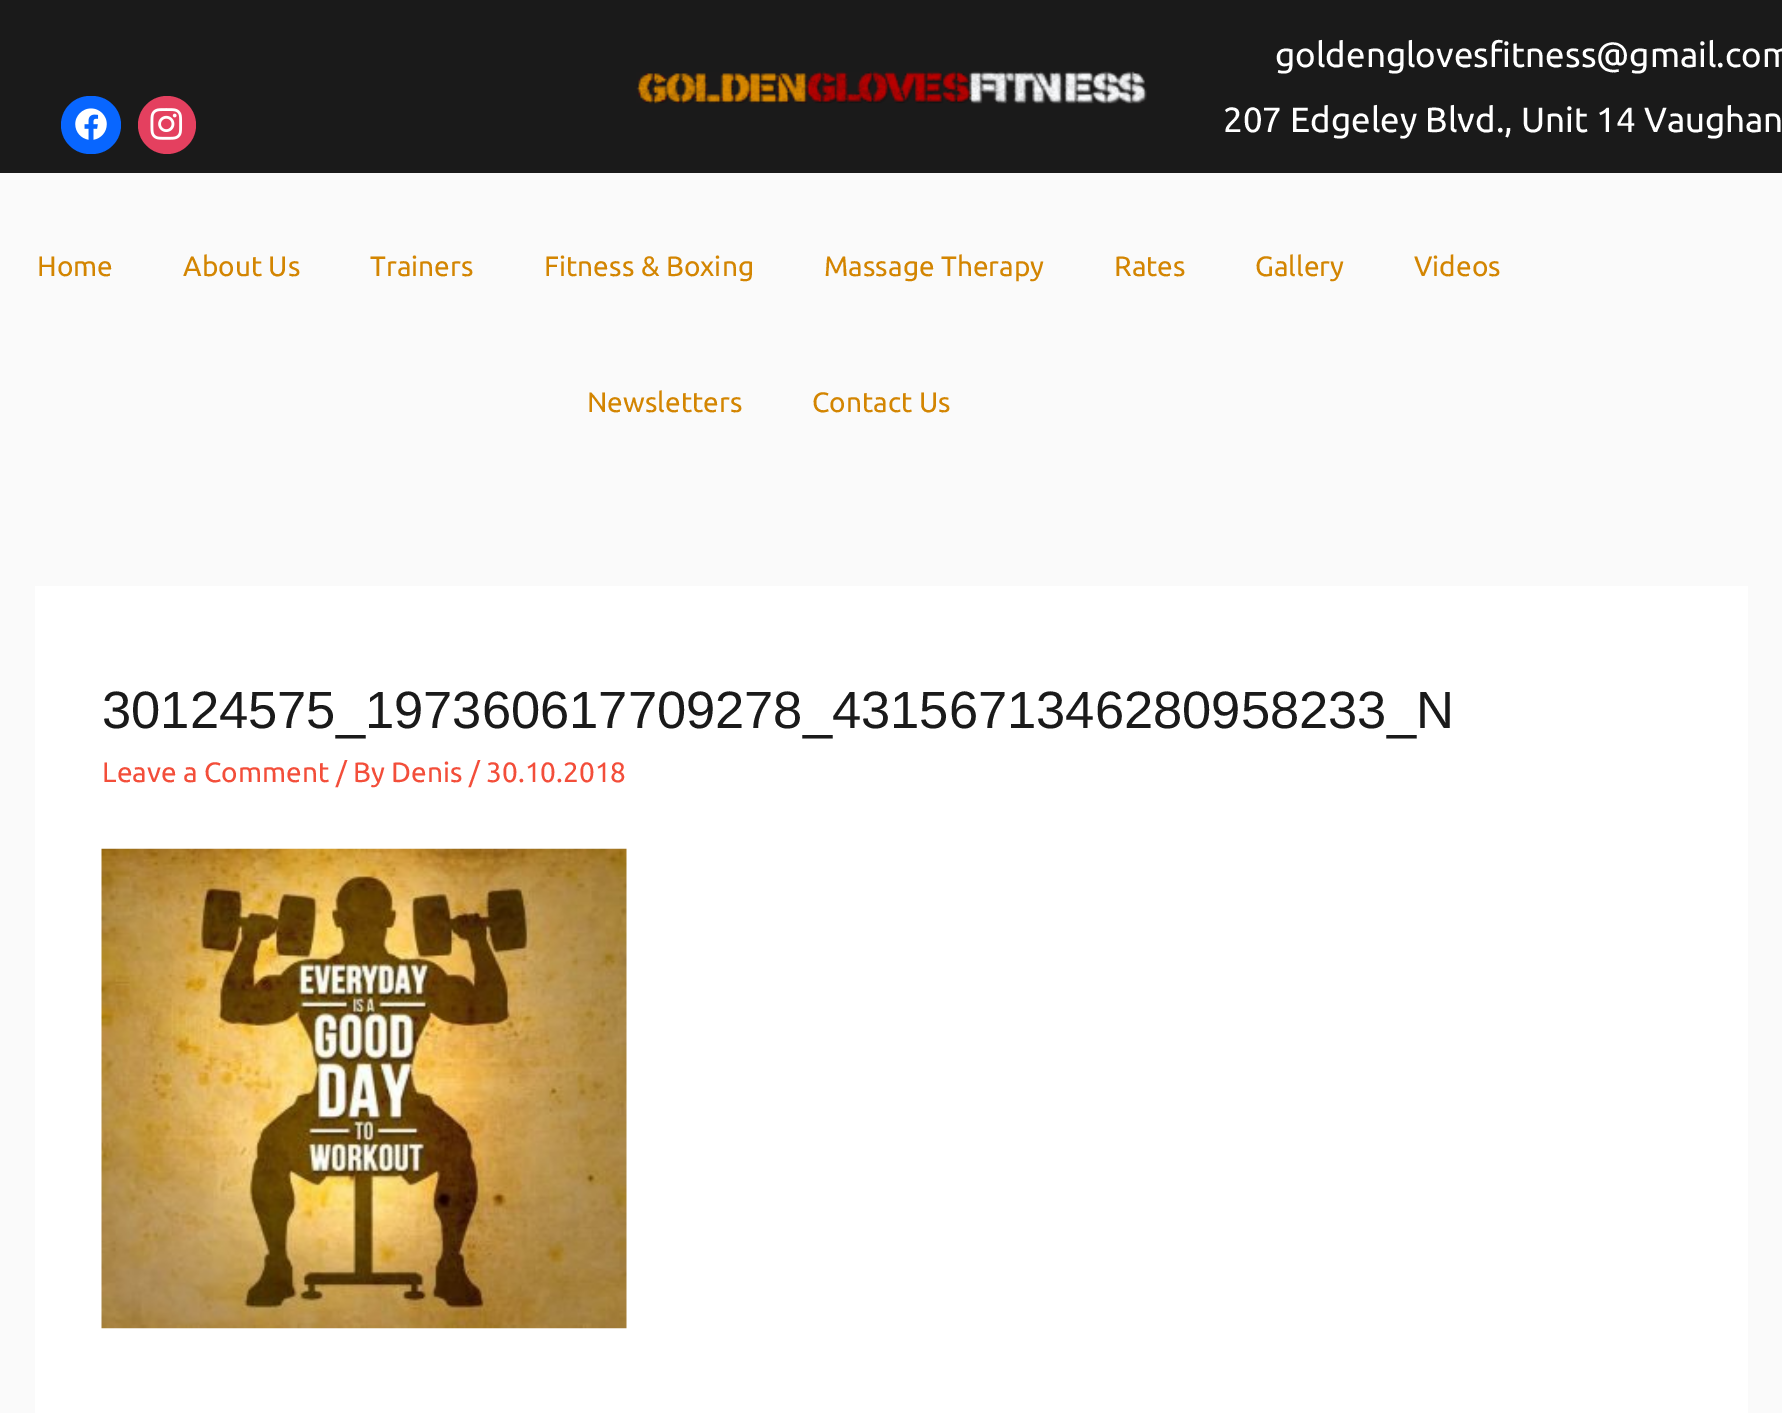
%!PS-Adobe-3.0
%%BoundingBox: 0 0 1782 1413
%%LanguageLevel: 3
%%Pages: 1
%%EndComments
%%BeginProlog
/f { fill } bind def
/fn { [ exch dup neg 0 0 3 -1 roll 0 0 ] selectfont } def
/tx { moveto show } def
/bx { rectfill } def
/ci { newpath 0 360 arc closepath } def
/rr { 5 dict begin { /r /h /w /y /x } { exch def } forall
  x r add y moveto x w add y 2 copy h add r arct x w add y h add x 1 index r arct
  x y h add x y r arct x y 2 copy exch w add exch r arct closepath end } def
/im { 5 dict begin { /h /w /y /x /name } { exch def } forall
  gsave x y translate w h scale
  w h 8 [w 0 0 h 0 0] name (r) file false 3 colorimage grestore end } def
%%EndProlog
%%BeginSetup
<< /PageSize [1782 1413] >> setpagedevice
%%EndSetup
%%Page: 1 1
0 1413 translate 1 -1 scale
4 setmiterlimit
0.98 setgray
0 0 1782 1413 bx
0.102 setgray
0 0 1782 173 bx
(image0.raw) 636 71 511 33 im
/Ubuntu-Regular 35 fn
1 setgray
(goldenglovesfitness@gmail.com) 1275 67 tx
(207 Edgeley Blvd., Unit 14 Vaughan) 1223 132 tx
0.031 0.4 1 setrgbcolor
61 96 60 58 29 rr f
(image1.raw) 75 108 32 32 im
0.894 0.251 0.373 setrgbcolor
167 125 29 ci f
(image2.raw) 150 108 33 32 im
/Ubuntu-Regular 28 fn
0.827 0.522 0.004 setrgbcolor
(Home) 37 276 tx
(About Us) 183 276 tx
(Trainers) 370 276 tx
(Fitness & Boxing) 544 276 tx
(Massage Therapy) 824 276 tx
(Rates) 1114 276 tx
(Gallery) 1255 276 tx
(Videos) 1414 276 tx
(Newsletters) 587 412 tx
(Contact Us) 812 412 tx
1 setgray
35 586 1713 827 bx
/LiberationSans-Regular 52.5 fn
0.102 setgray
(30124575_197360617709278_4315671346280958233_N) 102 728 tx
/Ubuntu-Regular 28 fn
0.953 0.306 0.227 setrgbcolor
(Leave a Comment / By Denis / 30.10.2018) 102 782 tx
(image3.raw) 101 848 526 481 im
showpage
%%EOF
